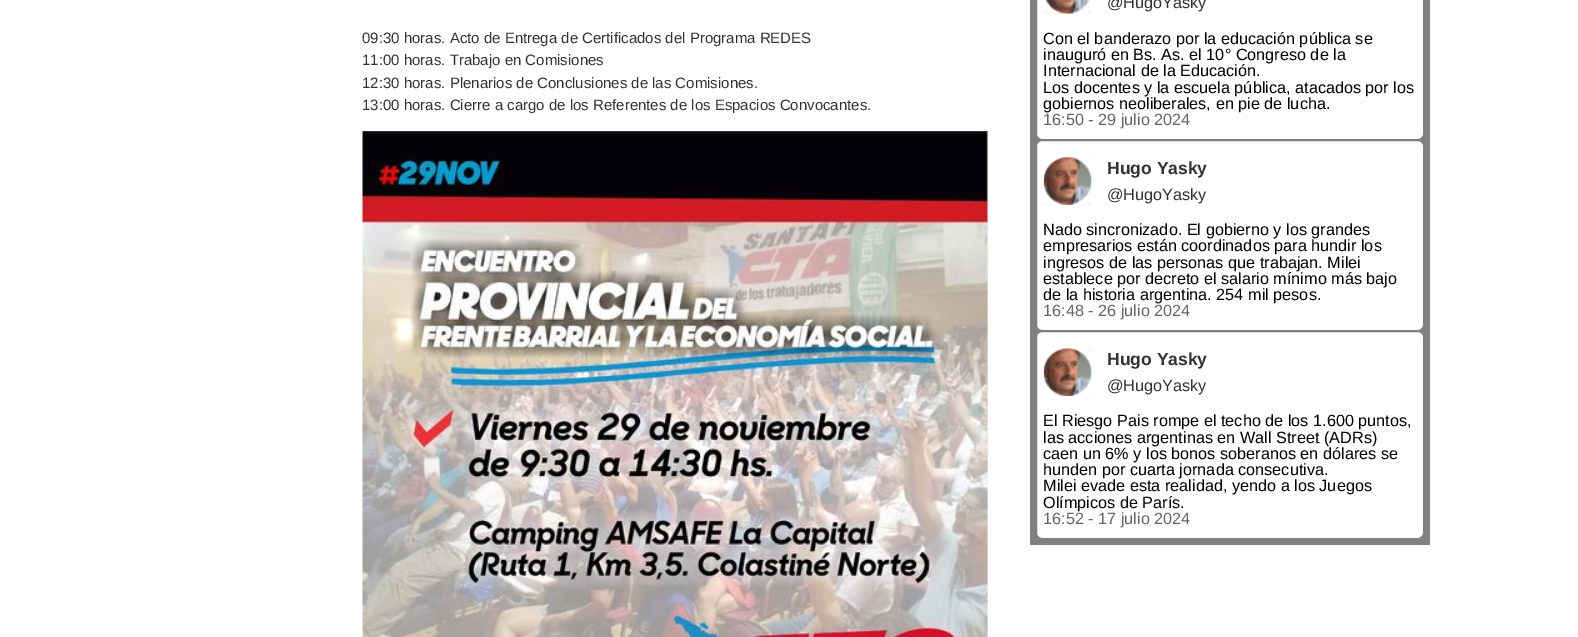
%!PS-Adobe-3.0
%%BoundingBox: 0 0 1578 637
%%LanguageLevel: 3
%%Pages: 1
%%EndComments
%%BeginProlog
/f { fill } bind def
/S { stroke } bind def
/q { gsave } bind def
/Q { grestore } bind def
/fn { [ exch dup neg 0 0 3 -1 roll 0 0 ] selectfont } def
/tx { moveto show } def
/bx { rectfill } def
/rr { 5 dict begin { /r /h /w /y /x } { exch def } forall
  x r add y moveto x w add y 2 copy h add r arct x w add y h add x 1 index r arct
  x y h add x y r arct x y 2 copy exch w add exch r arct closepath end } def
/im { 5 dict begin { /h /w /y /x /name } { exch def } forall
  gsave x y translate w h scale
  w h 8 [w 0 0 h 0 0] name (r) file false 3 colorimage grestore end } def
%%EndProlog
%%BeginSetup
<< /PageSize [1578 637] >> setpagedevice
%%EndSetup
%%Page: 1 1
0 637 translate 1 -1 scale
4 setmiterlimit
1 setgray
0 0 1578 637 bx
/LiberationSans-Regular 15 fn
0.2 setgray
(09:30 horas. Acto de Entrega de Certificados del Programa REDES) 362 43 tx
(11:00 horas. Trabajo en Comisiones) 362 65 tx
(12:30 horas. Plenarios de Conclusiones de las Comisiones.) 362 88 tx
(13:00 horas. Cierre a cargo de los Referentes de los Espacios Convocantes.) 362 110 tx
0.937 setgray
987 131 1 506 bx
(image0.raw) 362 131 626 506 im
0.502 setgray
1030 0 400 545 bx
1 setgray
1036.5 -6.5 387 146 5.5 rr q f Q
0.502 setgray
S
0.937 setgray
1044 9 47 5 bx
(image1.raw) 1044 0 47 14 im
/LiberationSans-Regular 16.25 fn
0.2 setgray
(@HugoYasky) 1107 8 tx
0 setgray
(Con el banderazo por la educación pública se) 1043 44 tx
(inauguró en Bs. As. el 10° Congreso de la) 1043 60 tx
(Internacional de la Educación.) 1043 76 tx
(Los docentes y la escuela pública, atacados por los) 1043 93 tx
(gobiernos neoliberales, en pie de lucha.) 1043 109 tx
0.4 setgray
(16:50 - 29 julio 2024) 1043 125 tx
1 setgray
1036.5 140.5 387 190 5.5 rr q f Q
0.502 setgray
S
0.937 setgray
1044 158 47 47 bx
(image2.raw) 1043 157 49 48 im
/LiberationSans-Bold 17.5 fn
0.2 setgray
(Hugo Yasky) 1107 174 tx
/LiberationSans-Regular 16.25 fn
(@HugoYasky) 1107 200 tx
0 setgray
(Nado sincronizado. El gobierno y los grandes) 1043 235 tx
(empresarios están coordinados para hundir los) 1043 251 tx
(ingresos de las personas que trabajan. Milei) 1043 268 tx
(establece por decreto el salario mínimo más bajo) 1043 284 tx
(de la historia argentina. 254 mil pesos.) 1043 300 tx
0.4 setgray
(16:48 - 26 julio 2024) 1043 316 tx
1 setgray
1036.5 331.5 387 207 5.5 rr q f Q
0.502 setgray
S
0.937 setgray
1044 349 47 47 bx
(image3.raw) 1043 348 49 48 im
/LiberationSans-Bold 17.5 fn
0.2 setgray
(Hugo Yasky) 1107 365 tx
/LiberationSans-Regular 16.25 fn
(@HugoYasky) 1107 391 tx
0 setgray
(El Riesgo Pais rompe el techo de los 1.600 puntos,) 1043 426 tx
(las acciones argentinas en Wall Street \(ADRs\)) 1043 443 tx
(caen un 6% y los bonos soberanos en dólares se) 1043 459 tx
(hunden por cuarta jornada consecutiva.) 1043 475 tx
(Milei evade esta realidad, yendo a los Juegos) 1043 491 tx
(Olímpicos de París.) 1043 508 tx
0.4 setgray
(16:52 - 17 julio 2024) 1043 524 tx
showpage
%%EOF
